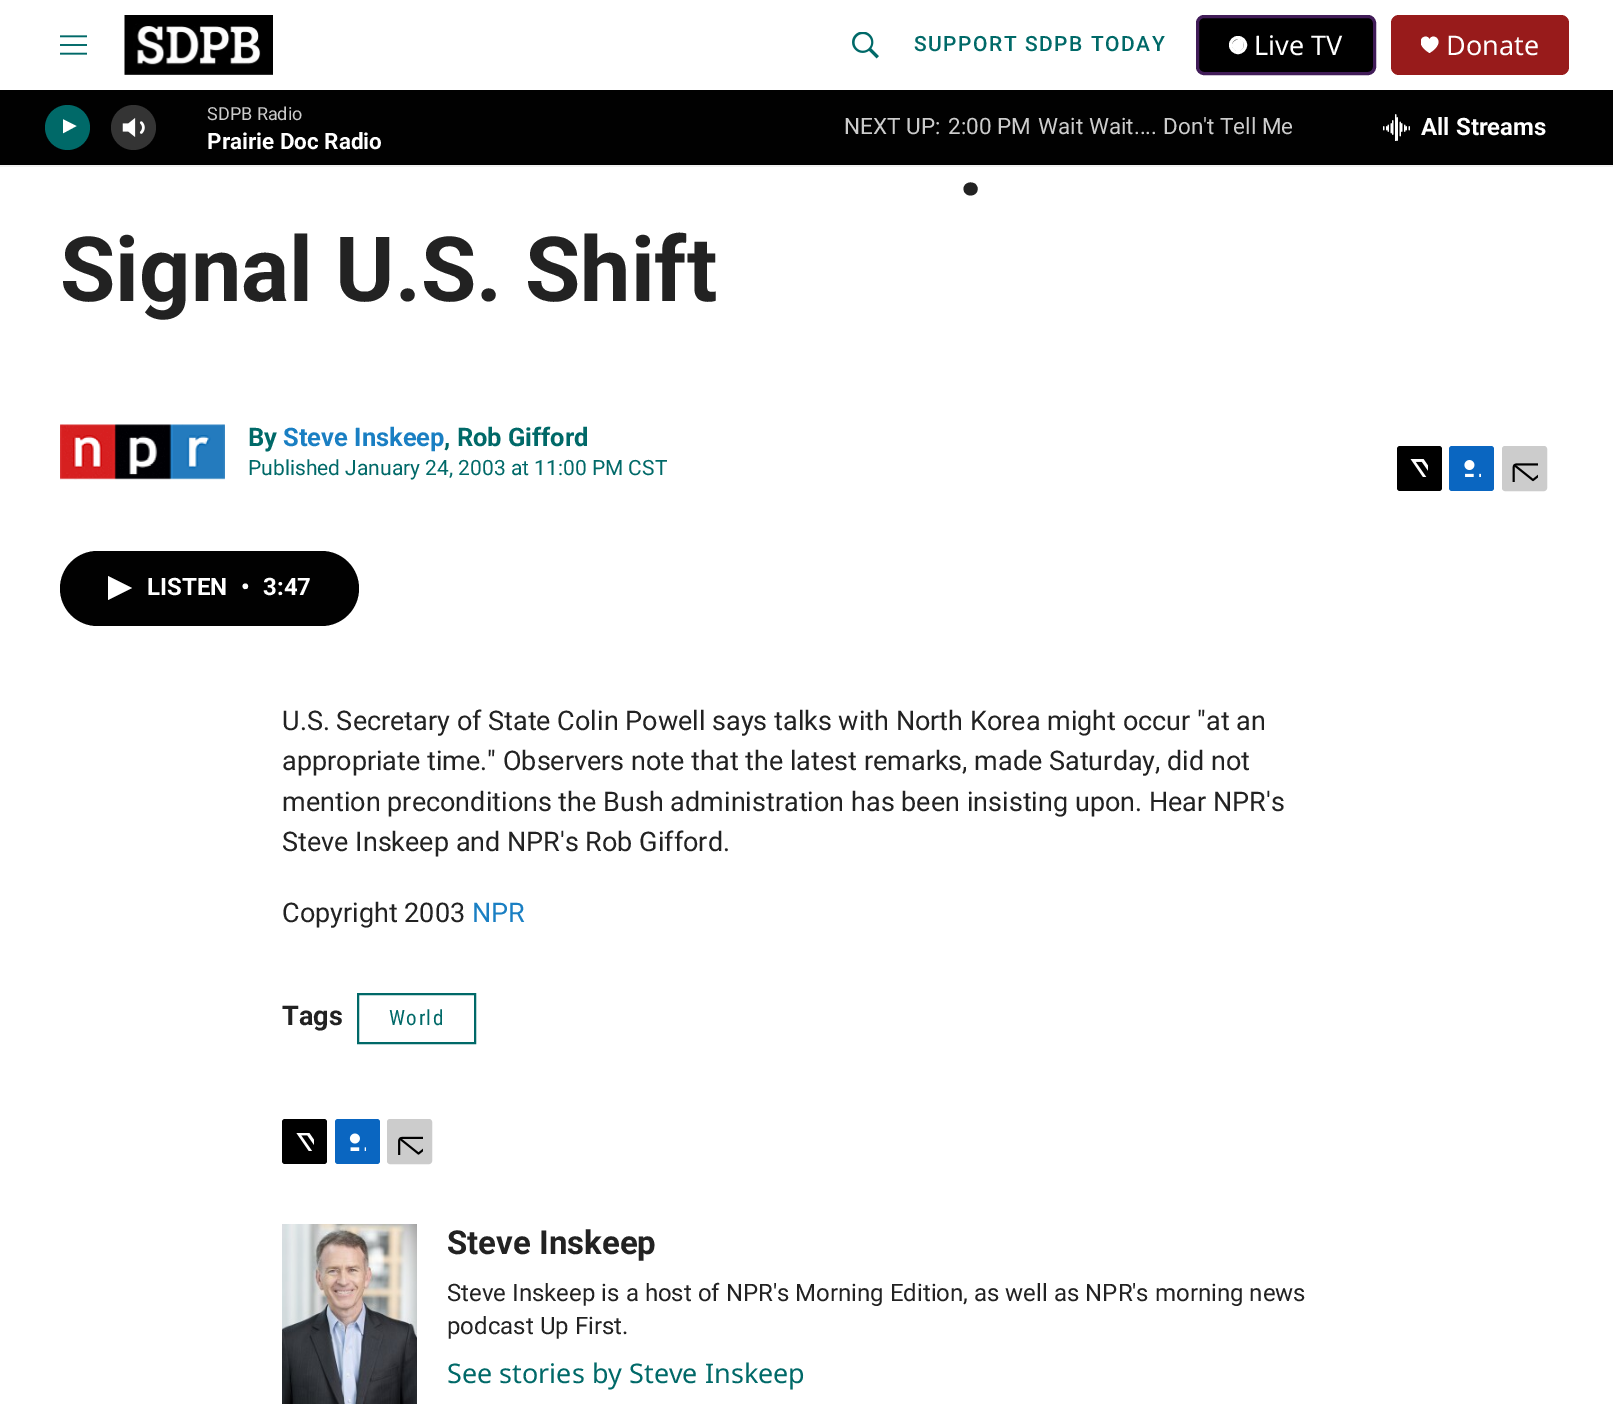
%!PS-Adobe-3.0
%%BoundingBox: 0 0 1613 1424
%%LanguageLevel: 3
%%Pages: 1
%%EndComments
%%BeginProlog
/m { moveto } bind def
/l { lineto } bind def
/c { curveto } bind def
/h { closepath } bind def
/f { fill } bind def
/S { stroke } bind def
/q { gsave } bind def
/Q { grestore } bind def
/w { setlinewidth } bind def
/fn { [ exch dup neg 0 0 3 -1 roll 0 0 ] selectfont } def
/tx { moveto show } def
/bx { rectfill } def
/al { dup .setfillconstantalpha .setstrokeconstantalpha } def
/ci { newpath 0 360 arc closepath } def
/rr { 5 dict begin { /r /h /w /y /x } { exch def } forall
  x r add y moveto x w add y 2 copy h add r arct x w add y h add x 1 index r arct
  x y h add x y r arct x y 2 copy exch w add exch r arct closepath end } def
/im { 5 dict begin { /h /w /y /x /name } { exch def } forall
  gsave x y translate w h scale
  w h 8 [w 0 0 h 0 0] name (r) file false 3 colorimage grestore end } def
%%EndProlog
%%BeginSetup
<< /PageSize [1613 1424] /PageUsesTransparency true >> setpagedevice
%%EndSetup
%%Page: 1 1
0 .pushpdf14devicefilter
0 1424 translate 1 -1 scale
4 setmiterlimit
1 setgray
0 0 1613 1424 bx
0.945 setgray
0 165 1613 2 bx
(image0.raw) 60 35 27 20 im
(image1.raw) 124 15 149 60 im
(image2.raw) 852 32 27 27 im
/Roboto-Medium 21 fn
0 0.412 0.408 setrgbcolor
914 51 m 1.5 0 (SUPPORT SDPB TODAY) ashow
0 setgray
1197.5 16.5 177 57 6.5 rr q f Q
0.255 0.11 0.345 setrgbcolor
3 w
S
1 setgray
1238 45 7.5 ci S
1239 39 m 1247.5 40.5 1243.5 54 1235.5 50.5 c 1234 50 1232.5 48 1232 46 c 1231.5 42.5 1236 39.5 1239 39 c h f
/NotoSans-Regular 27 fn
(Live TV) 1254 55 tx
0.596 0.106 0.106 setrgbcolor
1391 15 178 60 8 rr f
q
1421 36 18 18 rectclip
1 setgray
1429.5 39.5 m 1426.5 31.5 1411 41.5 1429.5 53 c 1448 41.5 1432.5 31.5 1429.5 39.5 c h f
Q
1 setgray
(Donate) 1446 55 tx
0.004 setgray
0 90 1613 75 bx
0 0.412 0.408 setrgbcolor
67.5 127.5 22.5 ci f
q
63 117 17 23 rectclip
1 setgray
62.5 119 m 76.5 126 l 62.5 133.5 l h f
Q
(image3.raw) 122 118 23 19 im
0.2 al
1 setgray
133.5 127.5 22.5 ci f
/Roboto-Regular 18 fn
1 al
0.8 setgray
(SDPB Radio) 207 120 tx
/Roboto-Bold 22.5 fn
1 setgray
(Prairie Doc Radio) 207 149 tx
/Roboto-Regular 22.5 fn
0.8 setgray
(NEXT UP:) 844 134 tx
(2:00 PM) 948 134 tx
(Wait Wait.... Don't Tell Me) 1038 134 tx
(image4.raw) 1383 114 27 27 im
/Roboto-Bold 24 fn
1 setgray
(All Streams) 1421 135 tx
/Roboto-Bold 90 fn
0.133 setgray
(.) 958 195 tx
(Signal U.S. Shift) 60 301 tx
(image5.raw) 60 424 165 56 im
/Roboto-Bold 25.5 fn
0 0.412 0.408 setrgbcolor
(By) 248 446 tx
0.102 0.498 0.765 setrgbcolor
(Steve Inskeep) 283 446 tx
0 0.412 0.408 setrgbcolor
(, Rob Gifford) 444 446 tx
/Roboto-Regular 21 fn
(Published January 24, 2003 at 11:00 PM CST) 248 475 tx
0 setgray
1397 446 45 45 3 rr f
(image6.raw) 1410 459 18 18 im
0.039 0.4 0.757 setrgbcolor
1449 446 45 45 3 rr f
(image7.raw) 1464 460 17 17 im
0.8 setgray
1503 447 43 43 2 rr q f Q
2 w
S
(image8.raw) 1512 463 26 19 im
0.004 setgray
60 551 299 75 37.5 rr f
1 setgray
108 576 m 132 588 l 108 600 l h f
/Roboto-Bold 24 fn
(LISTEN) 147 595 tx
(•) 241 595 tx
(3:47) 263 595 tx
/Roboto-Regular 27 fn
0.133 setgray
(U.S. Secretary of State Colin Powell says talks with North Korea might occur "at an) 282 730 tx
(appropriate time." Observers note that the latest remarks, made Saturday, did not) 282 770 tx
(mention preconditions the Bush administration has been insisting upon. Hear NPR's) 282 811 tx
(Steve Inskeep and NPR's Rob Gifford.) 282 851 tx
(Copyright 2003) 282 922 tx
0.102 0.498 0.765 setrgbcolor
(NPR) 472 922 tx
/Roboto-Bold 27 fn
0.133 setgray
(Tags) 282 1025 tx
0 0.412 0.408 setrgbcolor
358 994 117 49 rectstroke
/RobotoCondensed-Regular 21 fn
389 1025 m 1.5 0 (World) ashow
0 setgray
282 1119 45 45 3 rr f
(image9.raw) 296 1133 18 18 im
0.039 0.4 0.757 setrgbcolor
335 1119 45 45 3 rr f
(image10.raw) 349 1133 17 18 im
0.8 setgray
388 1120 43 43 2 rr q f Q
S
(image11.raw) 398 1136 25 19 im
(image12.raw) 282 1224 135 180 im
/Roboto-Bold 33 fn
0.133 setgray
(Steve Inskeep) 447 1254 tx
/Roboto-Regular 24 fn
(Steve Inskeep is a host of NPR's Morning Edition, as well as NPR's morning news) 447 1301 tx
(podcast Up First.) 447 1334 tx
/NotoSans-Regular 27 fn
0 0.412 0.408 setrgbcolor
(See stories by Steve Inskeep) 447 1383 tx
.poppdf14devicefilter showpage
%%EOF
